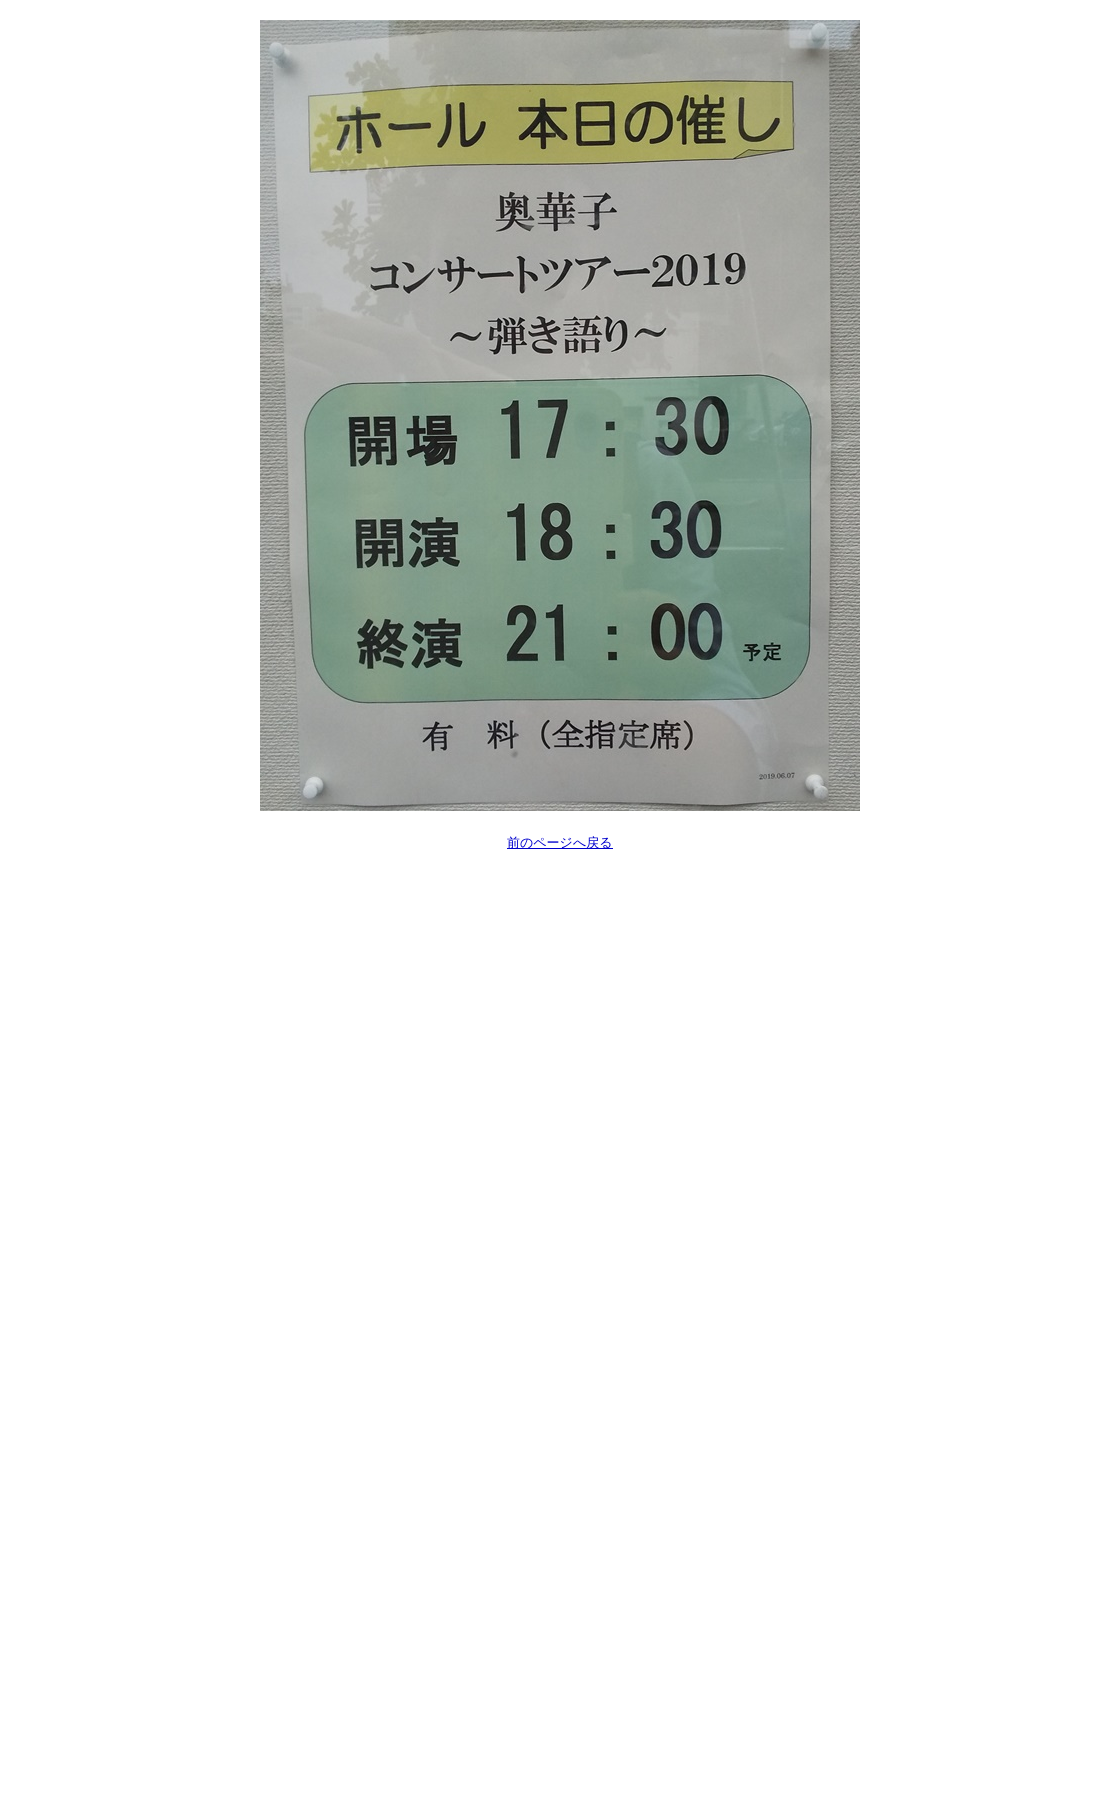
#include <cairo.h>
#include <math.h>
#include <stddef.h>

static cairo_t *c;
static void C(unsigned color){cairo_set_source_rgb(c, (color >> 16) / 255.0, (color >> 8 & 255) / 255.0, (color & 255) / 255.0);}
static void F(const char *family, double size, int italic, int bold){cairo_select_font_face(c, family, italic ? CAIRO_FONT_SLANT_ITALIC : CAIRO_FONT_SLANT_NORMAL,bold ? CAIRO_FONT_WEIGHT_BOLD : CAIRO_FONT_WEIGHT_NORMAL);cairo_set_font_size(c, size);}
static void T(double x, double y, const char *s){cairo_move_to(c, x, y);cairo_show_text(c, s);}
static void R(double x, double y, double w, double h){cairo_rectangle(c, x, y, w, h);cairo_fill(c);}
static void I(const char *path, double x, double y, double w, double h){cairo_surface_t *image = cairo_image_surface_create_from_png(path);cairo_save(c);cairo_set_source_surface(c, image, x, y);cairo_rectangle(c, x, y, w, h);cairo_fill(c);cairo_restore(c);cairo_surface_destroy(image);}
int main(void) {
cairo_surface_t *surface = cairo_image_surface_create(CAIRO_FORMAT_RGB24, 1120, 1796);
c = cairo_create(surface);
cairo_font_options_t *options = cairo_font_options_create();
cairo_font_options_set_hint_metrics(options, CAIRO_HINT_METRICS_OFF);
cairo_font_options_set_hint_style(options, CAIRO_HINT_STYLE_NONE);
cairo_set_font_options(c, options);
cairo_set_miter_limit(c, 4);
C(0xffffff);
cairo_paint(c);
I("1.png",260,20,600,791);
C(0x0000cc);
R(507,848,106,1);
F("WenQuanYi Zen Hei Medium",13,0,0);
T(507,847,"前のページへ戻る");
cairo_surface_write_to_png(surface, "o.png");
cairo_font_options_destroy(options);
cairo_destroy(c);
cairo_surface_destroy(surface);
return 0;
}
